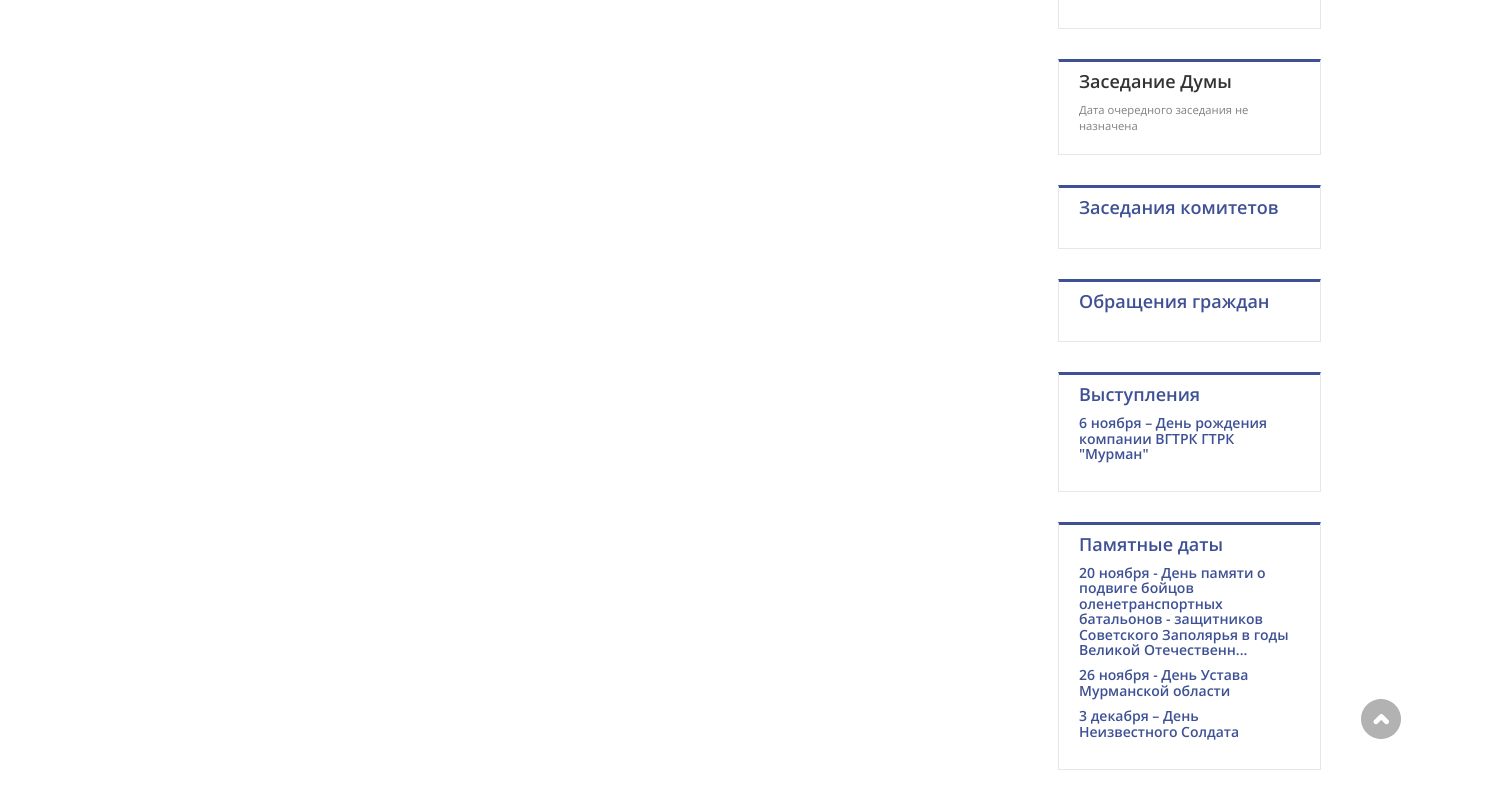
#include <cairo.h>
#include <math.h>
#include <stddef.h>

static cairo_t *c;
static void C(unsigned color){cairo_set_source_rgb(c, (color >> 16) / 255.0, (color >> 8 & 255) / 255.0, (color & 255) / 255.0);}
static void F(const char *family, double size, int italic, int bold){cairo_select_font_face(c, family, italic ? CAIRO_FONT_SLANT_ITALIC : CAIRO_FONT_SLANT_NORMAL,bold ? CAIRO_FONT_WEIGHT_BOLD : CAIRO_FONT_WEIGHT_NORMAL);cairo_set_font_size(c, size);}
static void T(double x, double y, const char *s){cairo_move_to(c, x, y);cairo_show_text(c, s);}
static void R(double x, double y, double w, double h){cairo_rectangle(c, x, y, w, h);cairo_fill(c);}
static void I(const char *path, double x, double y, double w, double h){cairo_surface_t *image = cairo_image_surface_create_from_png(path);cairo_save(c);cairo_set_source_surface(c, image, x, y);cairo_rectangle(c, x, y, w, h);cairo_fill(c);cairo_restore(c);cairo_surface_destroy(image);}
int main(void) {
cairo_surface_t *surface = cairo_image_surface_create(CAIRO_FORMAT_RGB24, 1501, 789);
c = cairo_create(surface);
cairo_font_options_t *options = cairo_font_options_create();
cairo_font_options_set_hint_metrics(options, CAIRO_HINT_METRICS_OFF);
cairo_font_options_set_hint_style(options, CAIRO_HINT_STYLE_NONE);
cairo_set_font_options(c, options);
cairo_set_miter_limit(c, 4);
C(0xffffff);
cairo_paint(c);
cairo_rectangle(c,1058.5,-.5,262,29);
C(0xe7e7e7);
cairo_set_line_width(c,1);
cairo_stroke(c);
C(0x3e5195);
cairo_new_path(c);
cairo_move_to(c,1058,59);
cairo_line_to(c,1321,59);
cairo_line_to(c,1320,62);
cairo_line_to(c,1059,62);
cairo_close_path(c);
cairo_fill(c);
C(0xe7e7e7);
cairo_new_path(c);
cairo_move_to(c,1321,59);
cairo_line_to(c,1321,155);
cairo_line_to(c,1320,154);
cairo_line_to(c,1320,62);
cairo_close_path(c);
cairo_fill(c);
R(1058,154,263,1);
cairo_new_path(c);
cairo_move_to(c,1058,155);
cairo_line_to(c,1058,59);
cairo_line_to(c,1059,62);
cairo_line_to(c,1059,154);
cairo_close_path(c);
cairo_fill(c);
F("Open Sans SemiBold",18,0,0);
C(0x333333);
T(1079,88,"Заседание Думы");
F("Open Sans",11.25,0,0);
C(0x808080);
T(1079,114,"Дата очередного заседания не");
T(1079,130,"назначена");
C(0x3e5195);
cairo_new_path(c);
cairo_move_to(c,1058,185);
cairo_line_to(c,1321,185);
cairo_line_to(c,1320,188);
cairo_line_to(c,1059,188);
cairo_close_path(c);
cairo_fill(c);
C(0xe7e7e7);
cairo_new_path(c);
cairo_move_to(c,1321,185);
cairo_line_to(c,1321,249);
cairo_line_to(c,1320,248);
cairo_line_to(c,1320,188);
cairo_close_path(c);
cairo_fill(c);
R(1058,248,263,1);
cairo_new_path(c);
cairo_move_to(c,1058,249);
cairo_line_to(c,1058,185);
cairo_line_to(c,1059,188);
cairo_line_to(c,1059,248);
cairo_close_path(c);
cairo_fill(c);
F("Open Sans SemiBold",18,0,0);
C(0x3e5194);
T(1079,214,"Заседания комитетов");
C(0x3e5195);
cairo_new_path(c);
cairo_move_to(c,1058,279);
cairo_line_to(c,1321,279);
cairo_line_to(c,1320,282);
cairo_line_to(c,1059,282);
cairo_close_path(c);
cairo_fill(c);
C(0xe7e7e7);
cairo_new_path(c);
cairo_move_to(c,1321,279);
cairo_line_to(c,1321,342);
cairo_line_to(c,1320,341);
cairo_line_to(c,1320,282);
cairo_close_path(c);
cairo_fill(c);
R(1058,341,263,1);
cairo_new_path(c);
cairo_move_to(c,1058,342);
cairo_line_to(c,1058,279);
cairo_line_to(c,1059,282);
cairo_line_to(c,1059,341);
cairo_close_path(c);
cairo_fill(c);
C(0x3e5194);
T(1079,308,"Обращения граждан");
C(0x3e5195);
cairo_new_path(c);
cairo_move_to(c,1058,372);
cairo_line_to(c,1321,372);
cairo_line_to(c,1320,375);
cairo_line_to(c,1059,375);
cairo_close_path(c);
cairo_fill(c);
C(0xe7e7e7);
cairo_new_path(c);
cairo_move_to(c,1321,372);
cairo_line_to(c,1321,492);
cairo_line_to(c,1320,491);
cairo_line_to(c,1320,375);
cairo_close_path(c);
cairo_fill(c);
R(1058,491,263,1);
cairo_new_path(c);
cairo_move_to(c,1058,492);
cairo_line_to(c,1058,372);
cairo_line_to(c,1059,375);
cairo_line_to(c,1059,491);
cairo_close_path(c);
cairo_fill(c);
C(0x3e5194);
T(1079,401,"Выступления");
F("Open Sans SemiBold",14,0,0);
T(1079,428,"6 ноября – День рождения");
T(1079,444,"компании ВГТРК ГТРК");
T(1079,459,"\"Мурман\"");
C(0x3e5195);
cairo_new_path(c);
cairo_move_to(c,1058,522);
cairo_line_to(c,1321,522);
cairo_line_to(c,1320,525);
cairo_line_to(c,1059,525);
cairo_close_path(c);
cairo_fill(c);
C(0xe7e7e7);
cairo_new_path(c);
cairo_move_to(c,1321,522);
cairo_line_to(c,1321,770);
cairo_line_to(c,1320,769);
cairo_line_to(c,1320,525);
cairo_close_path(c);
cairo_fill(c);
R(1058,769,263,1);
cairo_new_path(c);
cairo_move_to(c,1058,770);
cairo_line_to(c,1058,522);
cairo_line_to(c,1059,525);
cairo_line_to(c,1059,769);
cairo_close_path(c);
cairo_fill(c);
F("Open Sans SemiBold",18,0,0);
C(0x3e5194);
T(1079,551,"Памятные даты");
F("Open Sans SemiBold",14,0,0);
T(1079,578,"20 ноября - День памяти о");
T(1079,593,"подвиге бойцов");
T(1079,609,"оленетранспортных");
T(1079,624,"батальонов - защитников");
T(1079,640,"Советского Заполярья в годы");
T(1079,655,"Великой Отечественн...");
T(1079,680,"26 ноября - День Устава");
T(1079,696,"Мурманской области");
T(1079,721,"3 декабря – День");
T(1079,737,"Неизвестного Солдата");
I("1.png",1361,699,40,40);
cairo_surface_write_to_png(surface, "o.png");
cairo_font_options_destroy(options);
cairo_destroy(c);
cairo_surface_destroy(surface);
return 0;
}
